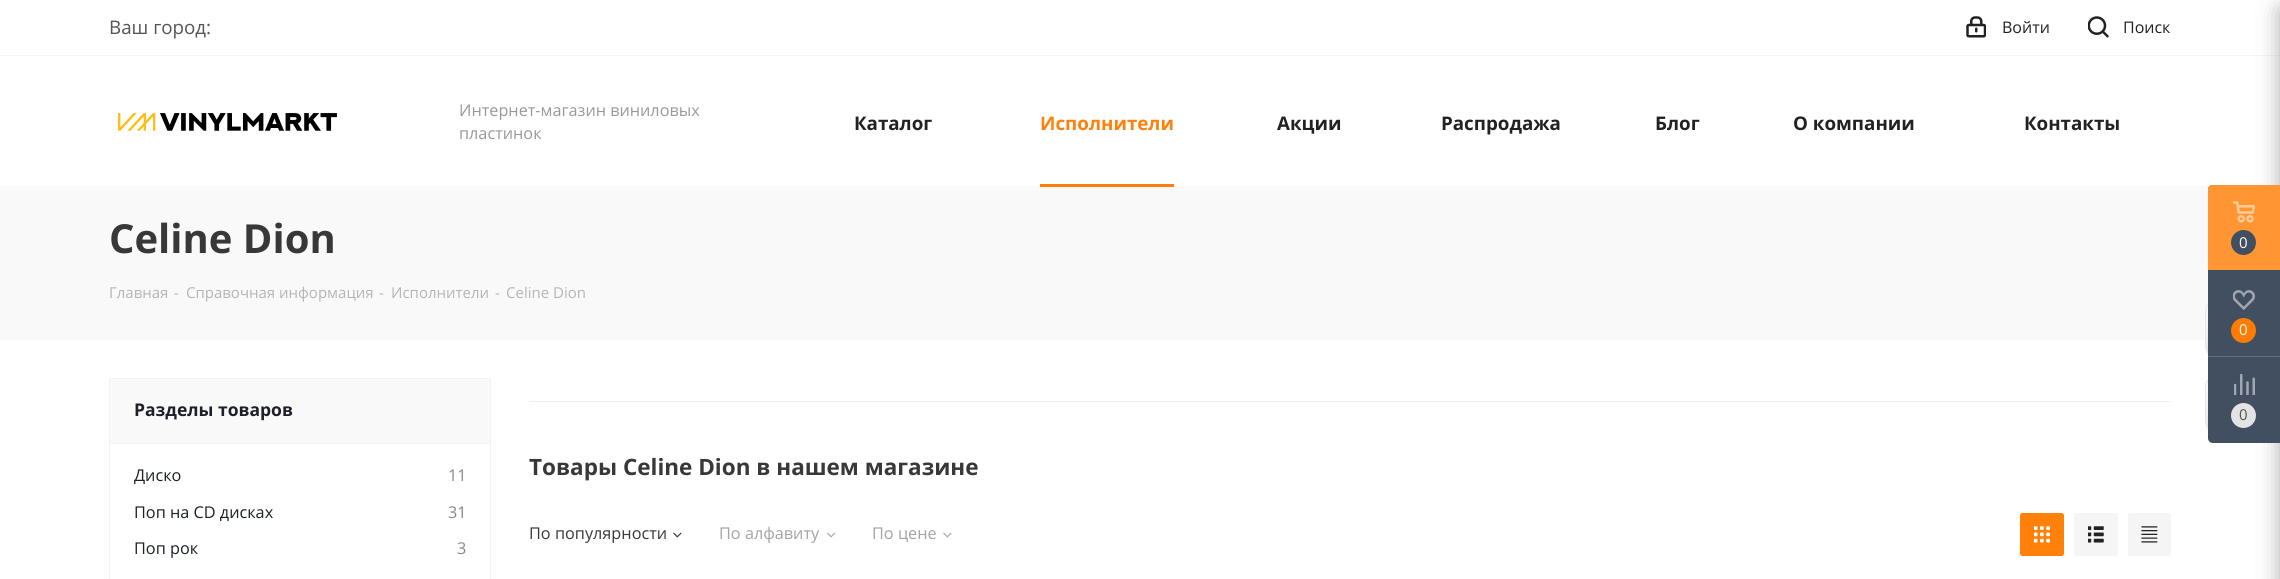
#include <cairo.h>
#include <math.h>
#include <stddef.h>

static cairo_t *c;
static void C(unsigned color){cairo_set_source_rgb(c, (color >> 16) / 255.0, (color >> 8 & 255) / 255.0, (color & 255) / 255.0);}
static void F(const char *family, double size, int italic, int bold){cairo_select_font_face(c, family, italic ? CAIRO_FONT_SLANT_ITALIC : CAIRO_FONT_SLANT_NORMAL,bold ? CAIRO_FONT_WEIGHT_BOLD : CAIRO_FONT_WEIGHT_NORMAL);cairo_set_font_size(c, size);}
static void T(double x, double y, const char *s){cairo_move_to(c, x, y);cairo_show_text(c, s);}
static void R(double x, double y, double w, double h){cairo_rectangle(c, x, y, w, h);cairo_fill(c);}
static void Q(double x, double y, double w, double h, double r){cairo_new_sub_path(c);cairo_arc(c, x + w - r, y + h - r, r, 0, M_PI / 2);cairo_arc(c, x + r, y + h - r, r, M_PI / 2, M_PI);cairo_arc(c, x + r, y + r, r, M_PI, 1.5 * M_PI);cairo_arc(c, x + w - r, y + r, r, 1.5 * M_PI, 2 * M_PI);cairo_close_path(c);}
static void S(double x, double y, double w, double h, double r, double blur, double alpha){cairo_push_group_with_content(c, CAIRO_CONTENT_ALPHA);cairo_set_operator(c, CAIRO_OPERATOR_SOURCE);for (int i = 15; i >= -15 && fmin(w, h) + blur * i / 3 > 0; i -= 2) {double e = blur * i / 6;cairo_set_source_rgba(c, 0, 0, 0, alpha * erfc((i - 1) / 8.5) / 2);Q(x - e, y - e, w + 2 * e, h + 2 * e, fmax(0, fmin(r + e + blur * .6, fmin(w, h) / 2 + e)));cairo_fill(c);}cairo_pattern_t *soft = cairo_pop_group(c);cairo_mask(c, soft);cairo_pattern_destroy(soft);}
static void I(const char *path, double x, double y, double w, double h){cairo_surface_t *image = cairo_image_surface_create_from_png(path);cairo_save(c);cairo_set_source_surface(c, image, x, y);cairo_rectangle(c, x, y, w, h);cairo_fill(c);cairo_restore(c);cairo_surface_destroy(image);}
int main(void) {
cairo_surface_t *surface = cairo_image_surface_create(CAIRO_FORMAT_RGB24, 2280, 579);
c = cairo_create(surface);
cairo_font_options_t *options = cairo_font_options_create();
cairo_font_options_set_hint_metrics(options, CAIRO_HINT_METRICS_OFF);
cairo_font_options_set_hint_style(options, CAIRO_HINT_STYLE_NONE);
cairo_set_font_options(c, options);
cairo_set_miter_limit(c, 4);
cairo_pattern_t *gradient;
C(0xffffff);
cairo_paint(c);
C(0xf6f6f6);
R(0,55,2280,1);
F("Open Sans",18.75,0,0);
C(0x555555);
T(109,34,"Ваш город:");
I("1.png",1966,16,20,22);
F("Open Sans",16,0,0);
C(0x222222);
T(2002,33,"Войти");
I("2.png",2088,16,21,22);
T(2123,33,"Поиск");
I("3.png",118,113,219,18);
F("Open Sans",16.25,0,0);
C(0x999999);
T(459,116,"Интернет-магазин виниловых");
T(459,139,"пластинок");
F("Open Sans",18.75,0,1);
C(0x222222);
T(854,130,"Каталог");
C(0xff810a);
T(1040,130,"Исполнители");
C(0xf9f9f9);
R(0,186,2210,154);
C(0xff810a);
R(1040,184,134,3);
C(0x222222);
T(1277,130,"Акции");
T(1441,130,"Распродажа");
T(1655,130,"Блог");
T(1793,130,"О компании");
T(2024,130,"Контакты");
F("Open Sans",40,0,1);
C(0x383838);
T(109,253,"Celine Dion");
F("Open Sans",15,0,0);
C(0xb6b5b5);
T(109,298,"Главная");
T(174,298,"-");
T(186,298,"Справочная информация");
T(379,298,"-");
T(391,298,"Исполнители");
T(495,298,"-");
T(506,298,"Celine Dion");
C(0xf9f9f9);
Q(109.5,378.5,381,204,2);
cairo_fill_preserve(c);
C(0xf2f2f2);
cairo_set_line_width(c,1);
cairo_stroke(c);
R(110,443,380,1);
F("Open Sans",17.5,0,1);
C(0x1d2029);
T(134,416,"Разделы товаров");
C(0xffffff);
R(110,444,380,135);
F("Open Sans",16.25,0,0);
C(0x1d2029);
T(134,481,"Диско");
C(0x888888);
T(448,481,"11");
C(0x1d2029);
T(134,518,"Поп на CD дисках");
C(0x888888);
T(448,518,"31");
C(0x1d2029);
T(134,554,"Поп рок");
C(0x888888);
T(457,554,"3");
C(0xf0f0f0);
R(529,401,1642,1);
F("Open Sans",22.5,0,1);
C(0x383838);
T(529,475,"Товары Celine Dion в нашем магазине");
F("Open Sans",16.25,0,0);
T(529,539,"По популярности");
I("4.png",673,532,9,6);
C(0xa5a3a3);
T(719,539,"По алфавиту");
I("5.png",827,532,9,6);
T(872,539,"По цене");
I("6.png",943,532,9,6);
C(0xff810a);
Q(2020,513,44,43,2.5);
cairo_fill(c);
I("7.png",2034,526,16,17);
C(0xf5f5f5);
Q(2074,513,44,43,2.5);
cairo_fill(c);
I("8.png",2088,526,16,17);
Q(2128,513,43,43,2.5);
cairo_fill(c);
I("9.png",2141,526,17,17);
cairo_save(c);
Q(2205,298,63,62,15);
cairo_clip(c);
gradient = cairo_pattern_create_linear(2236,359,2236,299);
cairo_pattern_add_color_stop_rgba(gradient,0,0.902,0.902,0.902,1);
cairo_pattern_add_color_stop_rgba(gradient,1,1,1,1,1);
cairo_set_source(c,gradient);
cairo_pattern_destroy(gradient);
R(2205,304,3,50);
cairo_restore(c);
Q(2205.5,298.5,62,61,14.5);
C(0xe6e6e6);
cairo_stroke(c);
cairo_save(c);
Q(2205,373,63,62,15);
cairo_clip(c);
gradient = cairo_pattern_create_linear(2236,434,2236,374);
cairo_pattern_add_color_stop_rgba(gradient,0,0.902,0.902,0.902,1);
cairo_pattern_add_color_stop_rgba(gradient,1,1,1,1,1);
cairo_set_source(c,gradient);
cairo_pattern_destroy(gradient);
R(2205,379,3,50);
cairo_restore(c);
Q(2205.5,373.5,62,61,14.5);
cairo_stroke(c);
C(0x2c2c2c);
S(2280,8,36,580,2.5,11,.4);
C(0x424f60);
cairo_new_path(c);
cairo_move_to(c,2213,185);
cairo_line_to(c,2280,185);
cairo_line_to(c,2280,443);
cairo_line_to(c,2213,443);
cairo_curve_to(c,2210,443,2208,441,2208,438);
cairo_line_to(c,2208,190);
cairo_curve_to(c,2208,187,2210,185,2213,185);
cairo_close_path(c);
cairo_fill(c);
C(0xff9633);
cairo_new_path(c);
cairo_move_to(c,2213,185);
cairo_line_to(c,2280,185);
cairo_line_to(c,2280,270);
cairo_line_to(c,2208,270);
cairo_line_to(c,2208,190);
cairo_curve_to(c,2208,187,2210,185,2213,185);
cairo_close_path(c);
cairo_fill(c);
I("10.png",2233,201,22,22);
C(0x424f60);
cairo_arc(c,2243.5,242.5,12.5,0,2 * M_PI);
cairo_fill(c);
F("Open Sans",15,0,0);
C(0xffffff);
T(2239,248,"0");
I("11.png",2233,290,22,20);
C(0xff7c00);
cairo_arc(c,2243.5,330.5,12.5,0,2 * M_PI);
cairo_fill(c);
C(0xffffff);
T(2239,335,"0");
C(0x636f7d);
R(2208,356,72,1);
I("12.png",2234,374,21,21);
C(0xe3e3e3);
cairo_arc(c,2243.5,415.5,12.5,0,2 * M_PI);
cairo_fill(c);
C(0x555555);
T(2239,420,"0");
cairo_surface_write_to_png(surface, "o.png");
cairo_font_options_destroy(options);
cairo_destroy(c);
cairo_surface_destroy(surface);
return 0;
}
